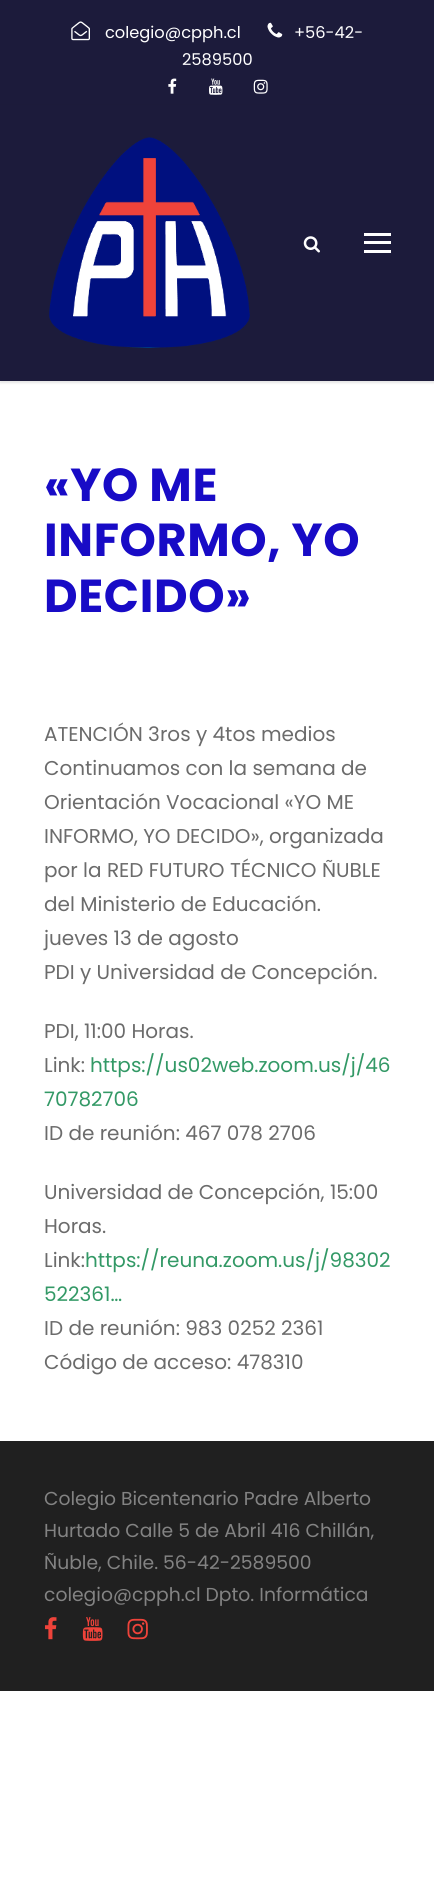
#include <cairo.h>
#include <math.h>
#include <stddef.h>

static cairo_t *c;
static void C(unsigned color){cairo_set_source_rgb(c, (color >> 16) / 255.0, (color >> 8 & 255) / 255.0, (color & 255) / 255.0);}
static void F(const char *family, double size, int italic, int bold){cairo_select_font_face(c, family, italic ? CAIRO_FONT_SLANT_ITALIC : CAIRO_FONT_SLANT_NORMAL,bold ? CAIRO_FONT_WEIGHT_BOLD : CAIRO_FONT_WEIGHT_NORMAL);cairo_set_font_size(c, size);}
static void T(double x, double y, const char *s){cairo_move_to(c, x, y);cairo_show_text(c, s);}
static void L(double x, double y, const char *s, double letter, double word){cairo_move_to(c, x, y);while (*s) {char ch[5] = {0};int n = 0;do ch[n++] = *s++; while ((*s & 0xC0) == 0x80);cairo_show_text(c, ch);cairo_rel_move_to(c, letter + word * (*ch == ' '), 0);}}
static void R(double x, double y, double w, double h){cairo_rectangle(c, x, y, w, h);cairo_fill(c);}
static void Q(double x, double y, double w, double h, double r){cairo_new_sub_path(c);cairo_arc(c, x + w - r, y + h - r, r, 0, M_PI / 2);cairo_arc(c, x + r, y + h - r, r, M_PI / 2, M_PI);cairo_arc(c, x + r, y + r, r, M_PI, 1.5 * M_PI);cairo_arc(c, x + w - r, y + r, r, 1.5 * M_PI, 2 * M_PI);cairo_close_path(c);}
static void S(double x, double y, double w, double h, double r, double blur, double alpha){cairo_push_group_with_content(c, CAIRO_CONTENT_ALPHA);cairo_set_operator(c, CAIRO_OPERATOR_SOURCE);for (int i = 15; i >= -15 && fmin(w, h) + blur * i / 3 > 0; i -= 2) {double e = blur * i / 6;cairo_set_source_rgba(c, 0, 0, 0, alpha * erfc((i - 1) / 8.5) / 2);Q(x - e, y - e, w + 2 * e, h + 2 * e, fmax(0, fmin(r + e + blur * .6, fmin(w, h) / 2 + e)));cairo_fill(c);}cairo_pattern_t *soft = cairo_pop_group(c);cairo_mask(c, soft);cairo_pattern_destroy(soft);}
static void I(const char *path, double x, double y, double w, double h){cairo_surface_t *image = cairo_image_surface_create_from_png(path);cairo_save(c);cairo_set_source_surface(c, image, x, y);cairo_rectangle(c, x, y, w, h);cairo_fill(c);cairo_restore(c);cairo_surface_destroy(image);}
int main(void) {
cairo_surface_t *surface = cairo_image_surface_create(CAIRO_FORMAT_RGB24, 434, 1888);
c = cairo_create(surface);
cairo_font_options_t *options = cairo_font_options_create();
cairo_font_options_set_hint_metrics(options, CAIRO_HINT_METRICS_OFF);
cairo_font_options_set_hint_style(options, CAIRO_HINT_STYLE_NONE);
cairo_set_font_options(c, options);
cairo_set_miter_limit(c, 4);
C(0xffffff);
cairo_paint(c);
C(0x1c1b3b);
R(0,0,434,105);
I("1.png",71,21,19,20);
F("Poppins",16.25,0,0);
C(0xffffff);
T(105,38,"colegio@cpph.cl");
I("2.png",267,22,16,16);
T(294,38,"+56-42-");
T(182,65,"2589500");
I("3.png",168,78,9,16);
I("4.png",209,78,14,17);
I("5.png",253,79,15,15);
C(0x000000);
S(0,106,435,277,0,1,.1);
C(0x1c1b3b);
R(0,105,434,276);
I("6.png",49,137,201,211);
I("7.png",303,236,17,17);
C(0xffffff);
R(364,233,27,3);
R(364,241,27,3);
R(364,250,27,3);
F("Poppins",46.25,0,1);
C(0x180bc6);
L(44,501,"«YO ME",.6,0);
L(44,556,"INFORMO, YO",.6,0);
L(44,612,"DECIDO»",.6,0);
F("Poppins",20,0,0);
C(0x6b6b6b);
T(44,741,"ATENCIÓN 3ros y 4tos medios");
T(44,775,"Continuamos con la semana de");
T(44,809,"Orientación Vocacional «YO ME");
T(44,843,"INFORMO, YO DECIDO», organizada");
T(44,877,"por la RED FUTURO TÉCNICO ÑUBLE");
T(44,911,"del Ministerio de Educación.");
T(44,945,"jueves 13 de agosto");
T(44,979,"PDI y Universidad de Concepción.");
T(44,1038,"PDI, 11:00 Horas.");
T(44,1072,"Link:");
C(0x339966);
T(90,1072,"https://us02web.zoom.us/j/46");
T(44,1106,"70782706");
C(0x6b6b6b);
T(44,1140,"ID de reunión: 467 078 2706");
T(44,1199,"Universidad de Concepción, 15:00");
T(44,1233,"Horas.");
T(44,1267,"Link:");
C(0x339966);
T(85,1267,"https://reuna.zoom.us/j/98302");
T(44,1301,"522361…");
C(0x6b6b6b);
T(44,1335,"ID de reunión: 983 0252 2361");
T(44,1369,"Código de acceso: 478310");
C(0x202020);
R(0,1441,434,250);
F("Poppins",18.75,0,0);
C(0x838383);
T(44,1505,"Colegio Bicentenario Padre Alberto");
T(44,1537,"Hurtado Calle 5 de Abril 416 Chillán,");
T(44,1569,"Ñuble, Chile. 56-42-2589500");
T(44,1601,"colegio@cpph.cl Dpto. Informática");
I("8.png",45,1617,12,23);
I("9.png",82,1617,21,24);
I("10.png",127,1618,21,22);
cairo_surface_write_to_png(surface, "o.png");
cairo_font_options_destroy(options);
cairo_destroy(c);
cairo_surface_destroy(surface);
return 0;
}
